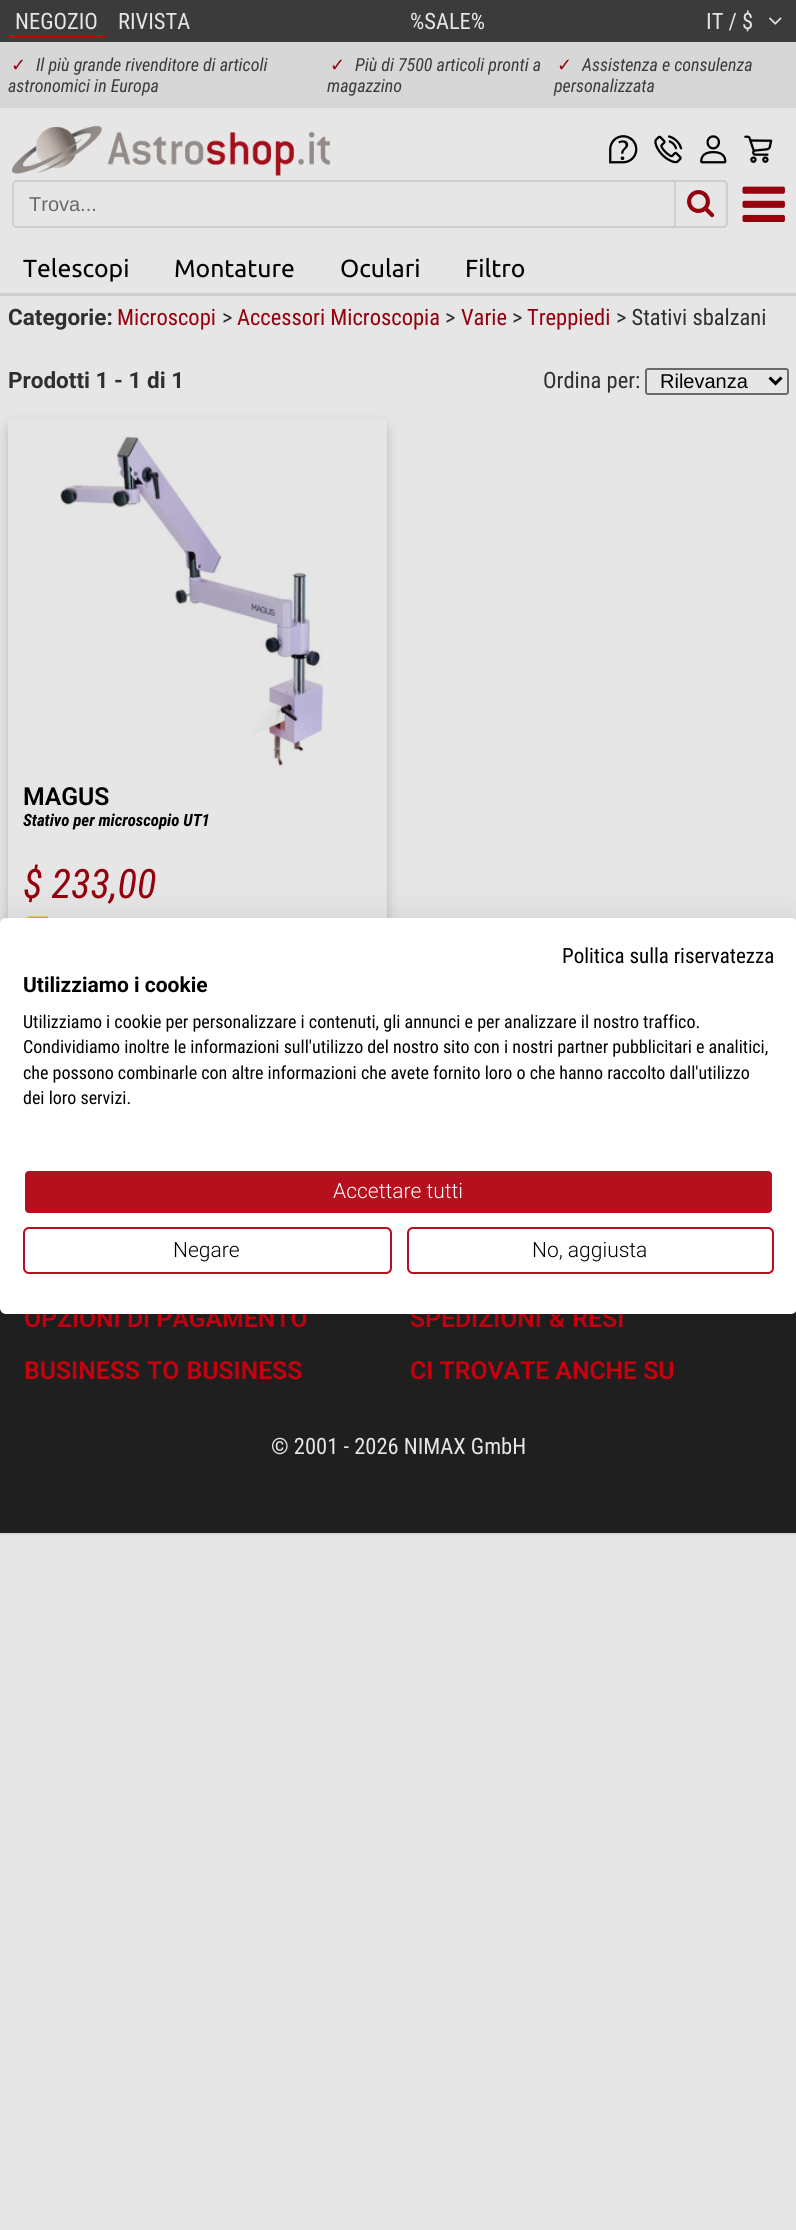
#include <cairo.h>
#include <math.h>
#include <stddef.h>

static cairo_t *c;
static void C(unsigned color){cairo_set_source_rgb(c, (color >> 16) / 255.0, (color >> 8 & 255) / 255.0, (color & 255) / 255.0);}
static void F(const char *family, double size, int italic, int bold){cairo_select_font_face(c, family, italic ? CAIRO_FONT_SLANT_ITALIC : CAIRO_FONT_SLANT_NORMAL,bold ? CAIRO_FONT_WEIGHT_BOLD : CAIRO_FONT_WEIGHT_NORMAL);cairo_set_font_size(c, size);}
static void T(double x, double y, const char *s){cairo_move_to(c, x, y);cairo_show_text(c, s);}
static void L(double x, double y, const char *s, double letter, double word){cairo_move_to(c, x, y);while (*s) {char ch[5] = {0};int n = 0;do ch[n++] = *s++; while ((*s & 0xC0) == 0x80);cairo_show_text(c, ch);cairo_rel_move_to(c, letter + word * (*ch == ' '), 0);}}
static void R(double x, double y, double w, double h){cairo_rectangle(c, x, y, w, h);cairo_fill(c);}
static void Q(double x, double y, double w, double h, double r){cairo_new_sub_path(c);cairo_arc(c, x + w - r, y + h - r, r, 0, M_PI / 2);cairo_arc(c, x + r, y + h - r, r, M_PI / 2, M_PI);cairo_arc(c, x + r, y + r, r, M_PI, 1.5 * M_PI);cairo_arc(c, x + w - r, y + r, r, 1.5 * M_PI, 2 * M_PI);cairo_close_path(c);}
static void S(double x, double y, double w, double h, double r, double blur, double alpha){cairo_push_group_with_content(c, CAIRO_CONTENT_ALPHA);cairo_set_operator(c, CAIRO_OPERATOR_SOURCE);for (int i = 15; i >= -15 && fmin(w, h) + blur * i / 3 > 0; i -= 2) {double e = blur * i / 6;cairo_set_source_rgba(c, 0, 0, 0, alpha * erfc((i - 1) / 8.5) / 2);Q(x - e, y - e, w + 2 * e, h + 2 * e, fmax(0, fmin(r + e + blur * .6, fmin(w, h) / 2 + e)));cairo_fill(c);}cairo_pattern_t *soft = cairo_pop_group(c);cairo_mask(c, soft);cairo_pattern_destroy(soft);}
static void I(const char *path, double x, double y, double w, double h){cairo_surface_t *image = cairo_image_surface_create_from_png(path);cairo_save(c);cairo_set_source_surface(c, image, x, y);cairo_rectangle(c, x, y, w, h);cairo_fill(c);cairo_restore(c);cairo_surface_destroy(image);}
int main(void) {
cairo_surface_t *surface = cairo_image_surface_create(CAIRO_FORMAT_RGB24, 796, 2230);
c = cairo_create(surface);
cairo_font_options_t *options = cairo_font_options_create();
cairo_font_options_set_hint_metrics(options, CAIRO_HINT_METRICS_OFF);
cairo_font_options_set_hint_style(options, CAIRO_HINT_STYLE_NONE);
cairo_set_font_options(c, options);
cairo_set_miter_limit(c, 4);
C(0xe6e6e6);
cairo_paint(c);
C(0x3b3b3c);
R(0,0,796,42);
F("Roboto Condensed",22.5,0,0);
C(0xe6e6e6);
T(15,29,"NEGOZIO");
C(0xc7000f);
R(8,35,97,3);
C(0xe6e6e6);
T(118,29,"RIVISTA");
T(410,29,"%SALE%");
T(706,29,"IT / $");
I("1.png",769,17,13,8);
C(0xd7d7d7);
R(0,42,796,66);
F("DejaVu Sans",18,0,0);
C(0x95000c);
T(11,71,"✓");
F("Roboto Condensed",18,1,0);
C(0x3b3b3c);
T(36,71,"Il più grande rivenditore di articoli");
T(8,92,"astronomici in Europa");
F("DejaVu Sans",18,0,0);
C(0x95000c);
T(330,71,"✓");
F("Roboto Condensed",18,1,0);
C(0x3b3b3c);
T(355,71,"Più di 7500 articoli pronti a");
T(327,92,"magazzino");
F("DejaVu Sans",18,0,0);
C(0x95000c);
T(557,71,"✓");
F("Roboto Condensed",18,1,0);
C(0x3b3b3c);
T(582,71,"Assistenza e consulenza");
T(554,92,"personalizzata");
I("2.png",12,126,319,50);
I("3.png",609,135,29,29);
I("4.png",654,135,29,29);
I("5.png",700,135,27,29);
I("6.png",744,135,29,28);
Q(13,181,714,46,4);
C(0xcecece);
cairo_stroke(c);
F("Liberation Sans",20,0,0);
C(0x696969);
T(29,211,"Trova...");
C(0xe6e6e6);
cairo_new_path(c);
cairo_move_to(c,675,181);
cairo_line_to(c,723,181);
cairo_curve_to(c,725,181,727,183,727,185);
cairo_line_to(c,727,223);
cairo_curve_to(c,727,225,725,227,723,227);
cairo_line_to(c,675,227);
cairo_close_path(c);
cairo_fill_preserve(c);
C(0xcecece);
cairo_stroke(c);
I("7.png",687,190,28,28);
I("8.png",742,186,43,36);
F("Ubuntu",24.75,0,0);
C(0x000000);
T(23,277,"Telescopi");
T(174,277,"Montature");
T(340,277,"Oculari");
T(465,277,"Filtro");
C(0xcecece);
R(0,293,796,3);
F("Roboto",22.5,0,1);
C(0x2f2f2f);
T(8,325,"Categorie:");
F("Roboto Condensed",22.5,0,0);
C(0x95000c);
T(117,325,"Microscopi");
C(0x2f2f2f);
T(222,325,">");
C(0x95000c);
T(237,325,"Accessori Microscopia");
C(0x2f2f2f);
T(445,325,">");
C(0x95000c);
T(461,325,"Varie");
C(0x2f2f2f);
T(512,325,">");
C(0x95000c);
T(527,325,"Treppiedi");
C(0x2f2f2f);
T(616,325,"> Stativi sbalzani");
F("Roboto",22.5,0,1);
T(8,388,"Prodotti 1 - 1 di 1");
F("Roboto Condensed",22.5,0,0);
T(543,388,"Ordina per:");
Q(646,369,142,25,2);
C(0x6a6a6a);
cairo_stroke(c);
cairo_new_path(c);
cairo_move_to(c,769.5,377.5);
cairo_line_to(c,775.5,383.5);
cairo_line_to(c,781.5,377.5);
C(0x000000);
cairo_set_line_width(c,3);
cairo_stroke(c);
F("Liberation Sans",20,0,0);
T(660,388,"Rilevanza");
cairo_save(c);
cairo_set_fill_rule(c,CAIRO_FILL_RULE_EVEN_ODD);
cairo_new_path(c);
cairo_move_to(c,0,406);
cairo_line_to(c,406,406);
cairo_line_to(c,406,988);
cairo_line_to(c,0,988);
cairo_close_path(c);
cairo_move_to(c,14,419);
cairo_line_to(c,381,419);
cairo_curve_to(c,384.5,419,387,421.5,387,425);
cairo_line_to(c,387,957);
cairo_curve_to(c,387,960.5,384.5,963,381,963);
cairo_line_to(c,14,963);
cairo_curve_to(c,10.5,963,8,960.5,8,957);
cairo_line_to(c,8,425);
cairo_curve_to(c,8,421.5,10.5,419,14,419);
cairo_close_path(c);
cairo_clip(c);
C(0x000000);
S(8,425,379,544,6,6,.2);
cairo_restore(c);
I("9.png",60,435,264,335);
F("Roboto SemiBold",24.75,0,0);
T(23,805,"MAGUS");
F("Roboto Condensed",16.9,1,1);
T(23,826,"Stativo per microscopio UT1");
F("Roboto Condensed",40.5,1,0);
C(0x95000c);
T(23,898,"$ 233,00");
I("10.png",26,916,22,2);
C(0x1f1f1f);
R(0,1308,796,225);
C(0xd7d7d7);
R(0,1533,796,2);
F("Roboto SemiBold",24.75,0,0);
C(0xc7000f);
T(24,1327,"OPZIONI DI PAGAMENTO");
L(410,1327,"SPEDIZIONI & RESI",0,1);
L(24,1379,"BUSINESS TO BUSINESS",0,1);
T(410,1379,"CI TROVATE ANCHE SU");
F("Roboto Condensed",22.5,0,0);
C(0xe6e6e6);
T(271,1454,"© 2001 - 2026 NIMAX GmbH");
C(0x000000);
S(0,918,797,396,6,18,.1);
C(0xffffff);
Q(0,918,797,396,6);
cairo_fill(c);
F("Roboto Condensed",21,0,0);
C(0x000000);
T(562,963,"Politica sulla riservatezza");
F("Roboto",21,0,1);
T(23,992,"Utilizziamo i cookie");
F("Roboto Condensed",18,0,0);
T(23,1028,"Utilizziamo i cookie per personalizzare i contenuti, gli annunci e per analizzare il nostro traffico.");
T(23,1053,"Condividiamo inoltre le informazioni sull'utilizzo del nostro sito con i nostri partner pubblicitari e analitici,");
T(23,1079,"che possono combinarle con altre informazioni che avete fornito loro o che hanno raccolto dall'utilizzo");
T(23,1104,"dei loro servizi.");
C(0xb60f1d);
Q(24,1170,749,44,5);
cairo_fill_preserve(c);
C(0xffffff);
cairo_set_line_width(c,2);
cairo_stroke(c);
F("Roboto Light",21,0,0);
T(333,1198,"Accettare tutti");
Q(24,1228,367,45,5);
C(0xb60f1d);
cairo_stroke(c);
C(0x000000);
T(173,1257,"Negare");
Q(408,1228,365,45,5);
C(0xb60f1d);
cairo_stroke(c);
C(0x000000);
T(532,1257,"No, aggiusta");
cairo_surface_write_to_png(surface, "o.png");
cairo_font_options_destroy(options);
cairo_destroy(c);
cairo_surface_destroy(surface);
return 0;
}
